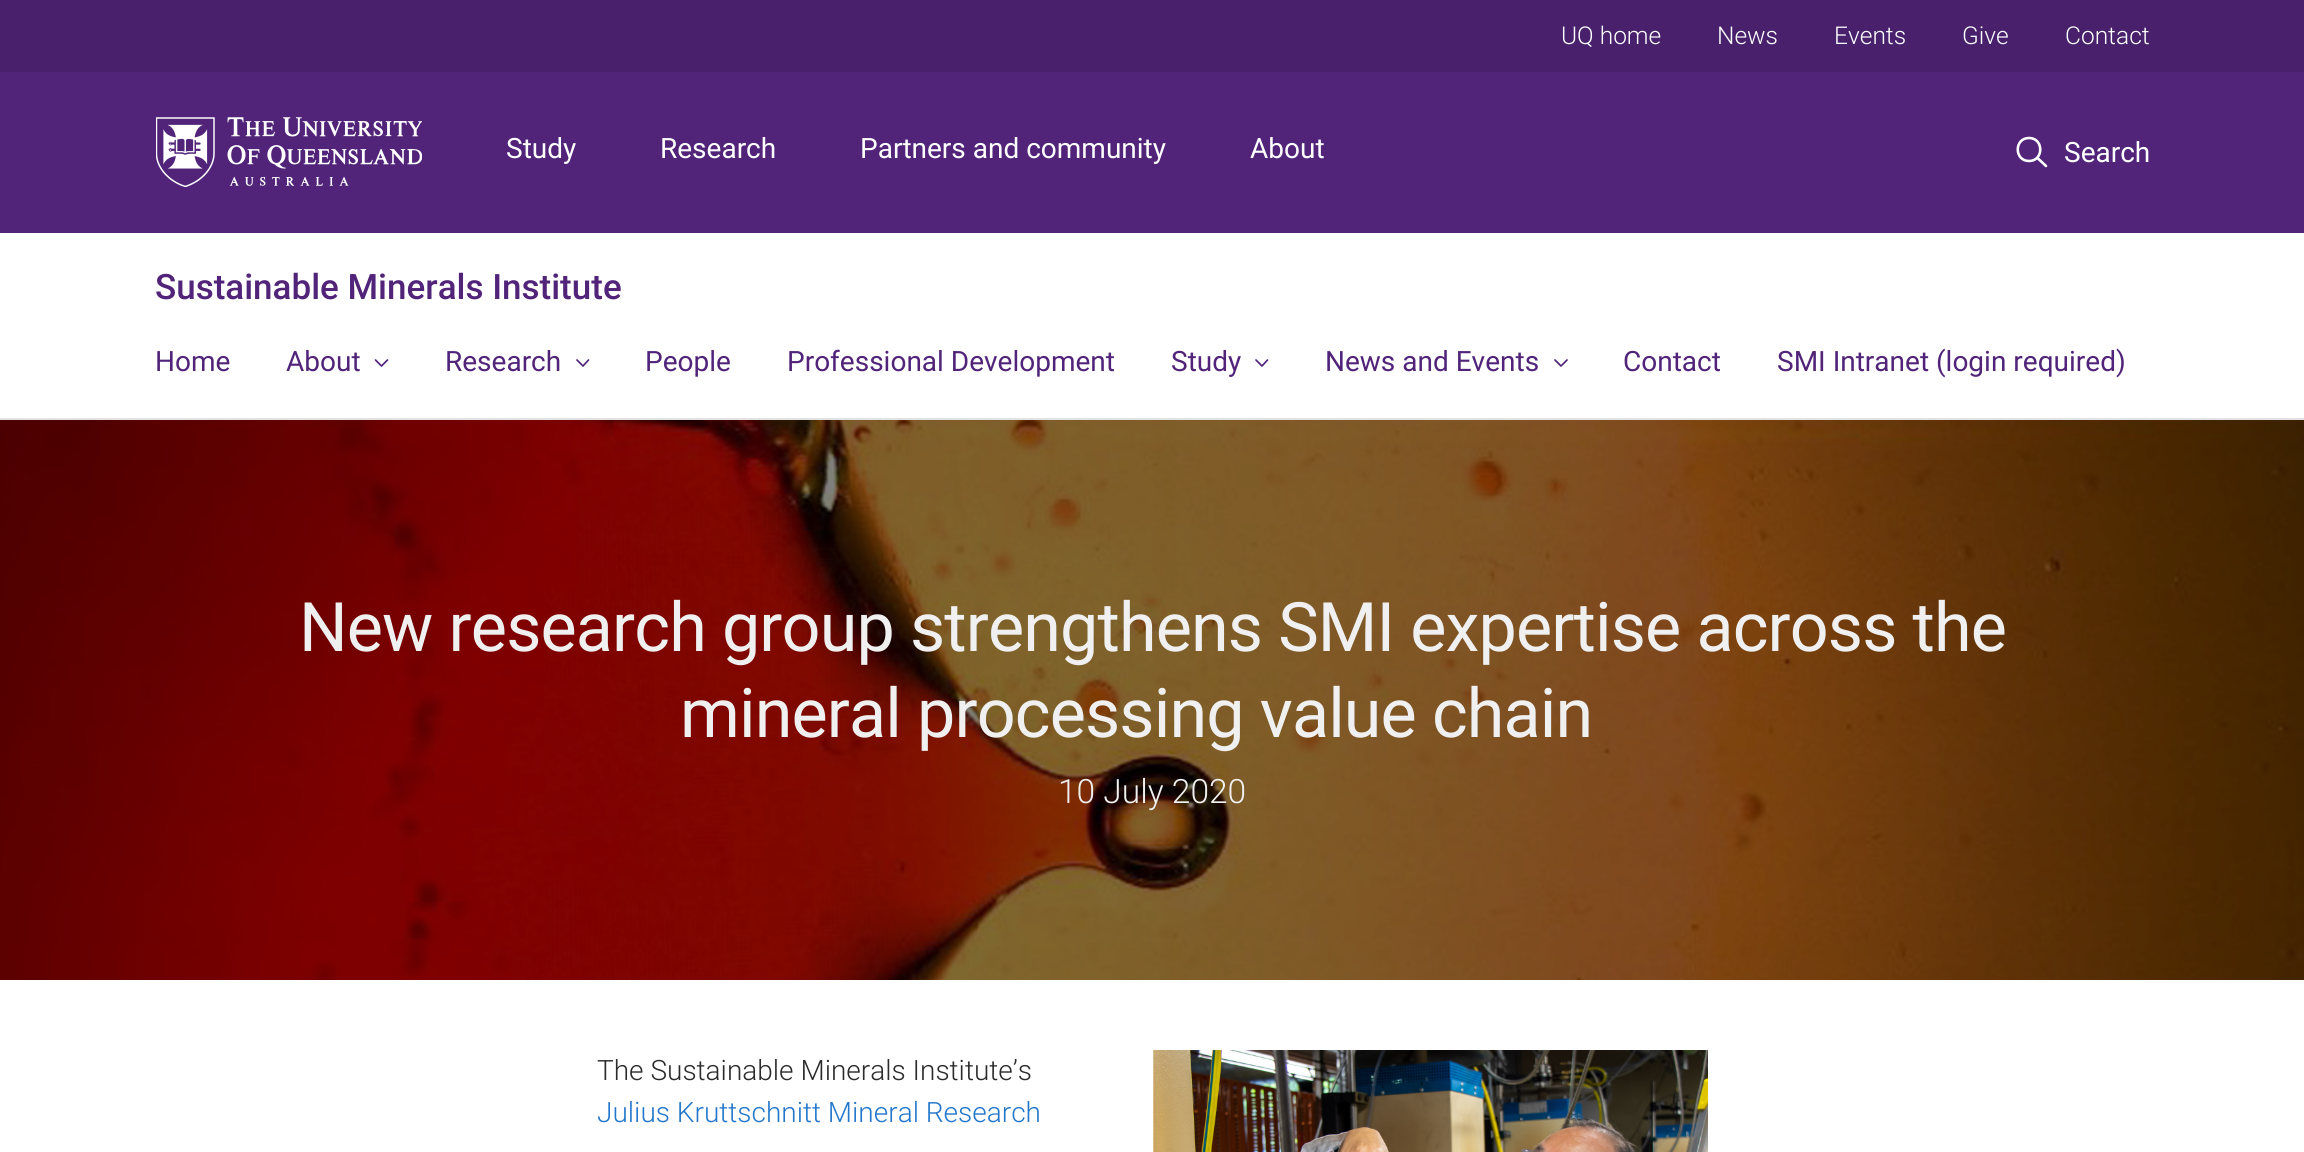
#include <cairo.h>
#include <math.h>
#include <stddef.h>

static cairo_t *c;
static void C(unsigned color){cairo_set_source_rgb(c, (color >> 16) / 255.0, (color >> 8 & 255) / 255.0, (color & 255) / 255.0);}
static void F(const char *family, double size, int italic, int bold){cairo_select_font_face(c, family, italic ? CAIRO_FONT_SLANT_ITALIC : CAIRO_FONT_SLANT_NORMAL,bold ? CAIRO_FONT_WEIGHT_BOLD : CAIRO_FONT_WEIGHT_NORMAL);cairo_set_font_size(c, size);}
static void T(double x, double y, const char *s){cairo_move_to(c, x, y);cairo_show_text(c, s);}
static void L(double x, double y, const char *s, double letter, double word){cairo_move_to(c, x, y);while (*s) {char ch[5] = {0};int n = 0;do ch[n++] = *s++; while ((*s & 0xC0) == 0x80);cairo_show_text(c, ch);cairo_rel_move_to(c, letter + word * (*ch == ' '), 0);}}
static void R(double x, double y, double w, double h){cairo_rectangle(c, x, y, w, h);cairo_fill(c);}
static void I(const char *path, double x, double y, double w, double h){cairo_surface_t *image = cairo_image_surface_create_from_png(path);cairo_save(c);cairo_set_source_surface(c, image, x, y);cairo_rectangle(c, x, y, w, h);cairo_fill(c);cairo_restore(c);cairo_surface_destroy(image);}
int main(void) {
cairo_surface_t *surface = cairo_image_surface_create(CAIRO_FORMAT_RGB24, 2304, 1152);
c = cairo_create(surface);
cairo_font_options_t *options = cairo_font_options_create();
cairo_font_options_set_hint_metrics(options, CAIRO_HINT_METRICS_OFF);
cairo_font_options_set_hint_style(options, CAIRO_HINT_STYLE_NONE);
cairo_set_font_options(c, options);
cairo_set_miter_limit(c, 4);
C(0xffffff);
cairo_paint(c);
C(0x51247a);
R(0,72,2304,161);
C(0x48206c);
R(0,0,2304,72);
F("Roboto Light",24.5,0,0);
C(0xffffff);
T(1561,44,"UQ home");
T(1717,44,"News");
T(1834,44,"Events");
T(1962,44,"Give");
T(2065,44,"Contact");
I("1.png",156,117,266,70);
F("Roboto",28,0,0);
T(506,158,"Study");
T(660,158,"Research");
T(860,158,"Partners and community");
T(1250,158,"About");
cairo_new_path(c);
cairo_move_to(c,2029,161);
cairo_curve_to(c,2044,161,2044,138,2029,138);
cairo_curve_to(c,2014,138,2014,161,2029,161);
cairo_close_path(c);
cairo_set_line_width(c,2.6);
cairo_stroke(c);
cairo_new_path(c);
cairo_move_to(c,2038,158.5);
cairo_line_to(c,2046,166);
cairo_set_line_cap(c,CAIRO_LINE_CAP_ROUND);
cairo_set_line_join(c,CAIRO_LINE_JOIN_ROUND);
cairo_stroke(c);
T(2064,162,"Search");
C(0xe2e2e2);
R(0,418,2304,2);
F("Roboto Medium",35,0,0);
C(0x51247a);
T(155,299,"Sustainable Minerals Institute");
F("Roboto",28,0,0);
T(155,371,"Home");
T(286,371,"About");
cairo_new_path(c);
cairo_move_to(c,375.5,360);
cairo_line_to(c,381.5,366);
cairo_line_to(c,387.5,360);
cairo_set_line_width(c,1.7);
cairo_stroke(c);
T(445,371,"Research");
cairo_new_path(c);
cairo_move_to(c,577,360);
cairo_line_to(c,583,366);
cairo_line_to(c,588.5,360);
cairo_stroke(c);
T(645,371,"People");
T(787,371,"Professional Development");
T(1171,371,"Study");
cairo_new_path(c);
cairo_move_to(c,1256,360);
cairo_line_to(c,1262,366);
cairo_line_to(c,1267.5,360);
cairo_stroke(c);
T(1325,371,"News and Events");
cairo_new_path(c);
cairo_move_to(c,1555,360);
cairo_line_to(c,1561,366);
cairo_line_to(c,1567,360);
cairo_stroke(c);
T(1623,371,"Contact");
T(1777,371,"SMI Intranet (login required)");
I("2.png",0,420,2304,560);
F("Roboto",68.25,0,0);
C(0xf0f0f0);
L(299,651,"New research group strengthens SMI expertise across the",-.88,0);
L(680,737,"mineral processing value chain",-.88,0);
F("Roboto Light",33.5,0,0);
T(1058,803,"10 July 2020");
F("Roboto Light",28,0,0);
C(0x2b2b2b);
T(597,1080,"The Sustainable Minerals Institute’s");
C(0x2377cb);
T(597,1122,"Julius Kruttschnitt Mineral Research");
I("3.png",1153,1050,555,102);
cairo_surface_write_to_png(surface, "o.png");
cairo_font_options_destroy(options);
cairo_destroy(c);
cairo_surface_destroy(surface);
return 0;
}
